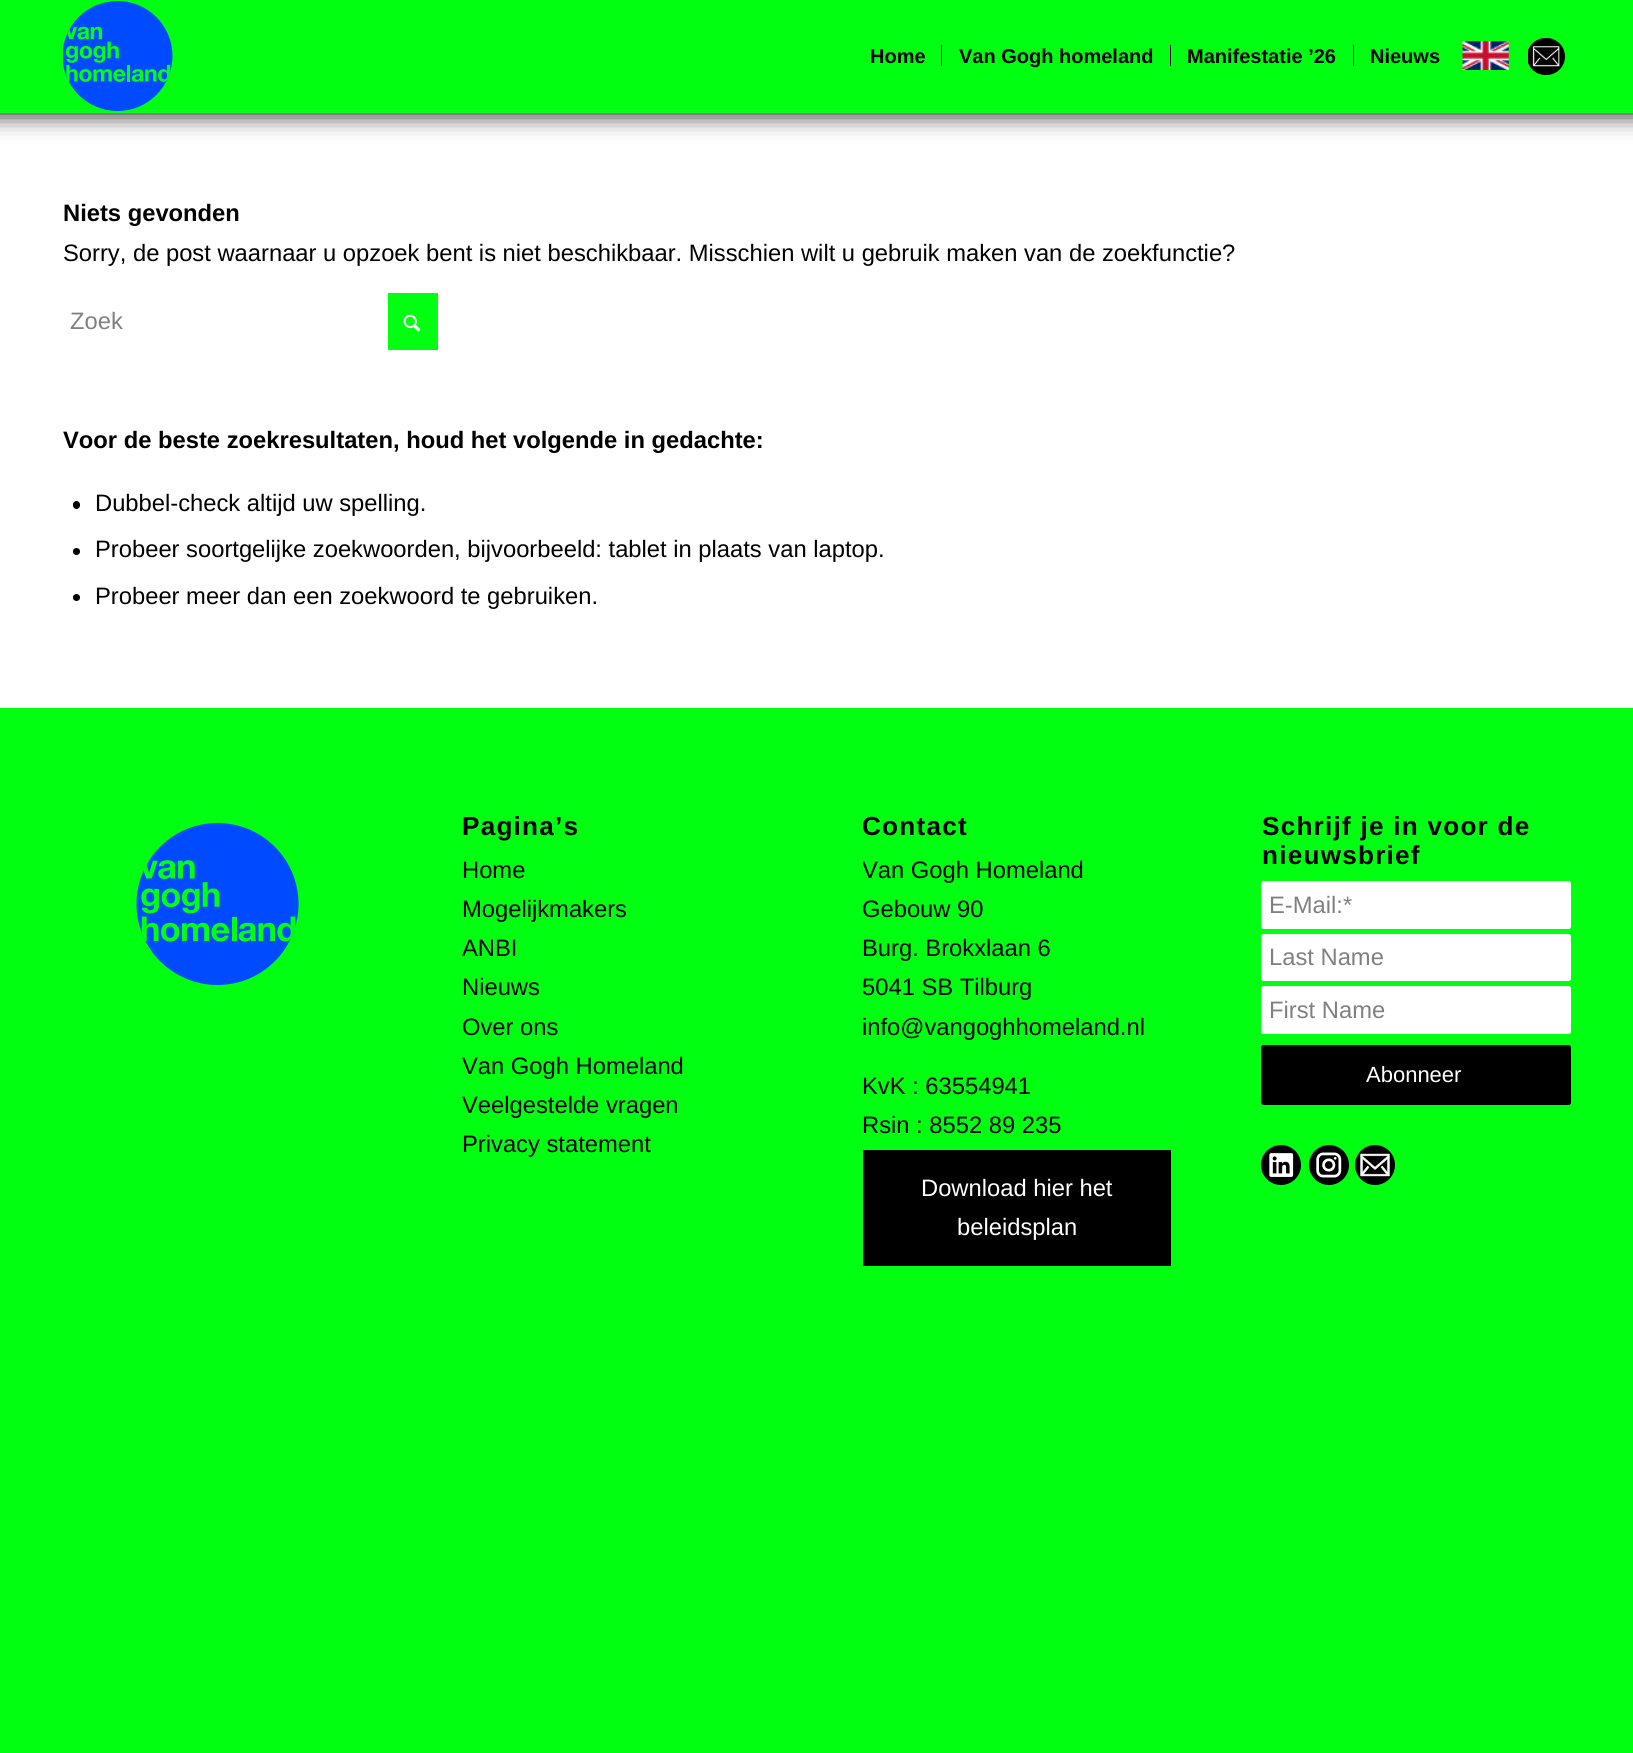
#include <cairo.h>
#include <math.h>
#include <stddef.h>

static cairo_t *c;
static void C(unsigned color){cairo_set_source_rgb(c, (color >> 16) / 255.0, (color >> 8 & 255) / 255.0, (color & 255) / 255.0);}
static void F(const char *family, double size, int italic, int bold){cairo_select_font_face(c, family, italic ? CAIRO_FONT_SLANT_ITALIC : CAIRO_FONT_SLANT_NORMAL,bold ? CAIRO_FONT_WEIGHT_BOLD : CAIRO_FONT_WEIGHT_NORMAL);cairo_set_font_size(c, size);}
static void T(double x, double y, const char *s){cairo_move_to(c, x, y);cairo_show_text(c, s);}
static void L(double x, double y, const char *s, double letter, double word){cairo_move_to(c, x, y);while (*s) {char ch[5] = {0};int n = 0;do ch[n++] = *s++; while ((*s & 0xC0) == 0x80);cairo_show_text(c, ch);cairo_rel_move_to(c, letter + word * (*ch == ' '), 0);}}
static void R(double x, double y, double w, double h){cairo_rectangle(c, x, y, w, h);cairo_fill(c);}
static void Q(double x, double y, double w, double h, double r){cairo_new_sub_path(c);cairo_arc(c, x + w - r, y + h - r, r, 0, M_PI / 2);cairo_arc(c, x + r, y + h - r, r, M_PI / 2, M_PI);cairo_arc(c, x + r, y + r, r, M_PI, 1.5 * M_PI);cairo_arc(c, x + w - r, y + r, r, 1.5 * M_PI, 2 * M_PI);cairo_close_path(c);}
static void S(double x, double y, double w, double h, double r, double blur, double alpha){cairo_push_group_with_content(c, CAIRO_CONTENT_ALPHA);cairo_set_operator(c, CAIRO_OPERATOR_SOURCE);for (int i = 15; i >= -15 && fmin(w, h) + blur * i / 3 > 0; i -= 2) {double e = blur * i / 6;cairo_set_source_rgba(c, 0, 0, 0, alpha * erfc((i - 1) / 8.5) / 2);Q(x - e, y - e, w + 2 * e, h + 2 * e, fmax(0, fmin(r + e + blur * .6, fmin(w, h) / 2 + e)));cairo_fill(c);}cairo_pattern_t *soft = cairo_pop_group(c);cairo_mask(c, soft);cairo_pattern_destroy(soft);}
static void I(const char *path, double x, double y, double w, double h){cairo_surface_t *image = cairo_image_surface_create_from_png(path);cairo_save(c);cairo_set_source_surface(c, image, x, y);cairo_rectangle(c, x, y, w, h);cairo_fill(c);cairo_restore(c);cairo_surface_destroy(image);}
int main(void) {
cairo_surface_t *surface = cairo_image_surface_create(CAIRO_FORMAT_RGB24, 1633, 1753);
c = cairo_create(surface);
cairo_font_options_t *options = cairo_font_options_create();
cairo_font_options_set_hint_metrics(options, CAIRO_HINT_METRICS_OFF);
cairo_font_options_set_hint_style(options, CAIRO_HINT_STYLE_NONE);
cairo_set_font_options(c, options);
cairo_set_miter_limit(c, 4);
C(0x00ff11);
cairo_paint(c);
C(0xffffff);
R(0,110,1633,598);
cairo_save(c);
cairo_set_fill_rule(c,CAIRO_FILL_RULE_EVEN_ODD);
cairo_new_path(c);
cairo_move_to(c,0,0);
cairo_line_to(c,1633,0);
cairo_line_to(c,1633,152);
cairo_line_to(c,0,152);
cairo_close_path(c);
cairo_move_to(c,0,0);
cairo_line_to(c,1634,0);
cairo_line_to(c,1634,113);
cairo_line_to(c,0,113);
cairo_close_path(c);
cairo_clip(c);
C(0x000000);
S(-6,-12,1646,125,0,12.5,1);
cairo_restore(c);
cairo_set_source_rgba(c,0,1,0.067,0.95);
R(0,110,1633,3);
C(0x00ff11);
R(0,111,1633,1);
I("1.png",63,1,110,110);
F("Liberation Sans",20,0,1);
C(0x000000);
T(870,63,"Home");
T(959,63,"Van Gogh homeland");
R(941,45,1,21);
T(1187,63,"Manifestatie ’26");
R(1170,45,1,21);
T(1370,63,"Nieuws");
R(1353,45,1,21);
I("2.png",1462,41,47,29);
I("3.png",1528,38,37,37);
F("Liberation Sans",23.75,0,1);
T(63,221,"Niets gevonden");
F("Liberation Sans",23.75,0,0);
T(63,261,"Sorry, de post waarnaar u opzoek bent is niet beschikbaar. Misschien wilt u gebruik maken van de zoekfunctie?");
C(0x808080);
T(70,329,"Zoek");
C(0x00ff11);
R(388,293,50,57);
I("4.png",403,314,18,18);
F("Liberation Sans",23.75,0,1);
C(0x000000);
T(63,448,"Voor de beste zoekresultaten, houd het volgende in gedachte:");
Q(73,501,7,8,3.5);
cairo_fill(c);
F("Liberation Sans",23.75,0,0);
T(95,511,"Dubbel-check altijd uw spelling.");
cairo_new_path(c);
cairo_arc(c,76.5,551.5,3.5,0,2 * M_PI);
cairo_fill(c);
T(95,557,"Probeer soortgelijke zoekwoorden, bijvoorbeeld: tablet in plaats van laptop.");
cairo_new_path(c);
cairo_arc(c,76.5,597.5,3.5,0,2 * M_PI);
cairo_fill(c);
T(95,604,"Probeer meer dan een zoekwoord te gebruiken.");
I("5.png",136,823,163,162);
F("Liberation Sans",26.1,0,1);
L(462,835,"Pagina’s",1.25,0);
F("Liberation Sans",23.75,0,0);
T(462,878,"Home");
T(462,917,"Mogelijkmakers");
T(462,956,"ANBI");
T(462,995,"Nieuws");
T(462,1035,"Over ons");
T(462,1074,"Van Gogh Homeland");
T(462,1113,"Veelgestelde vragen");
T(462,1152,"Privacy statement");
F("Liberation Sans",26.1,0,1);
L(862,835,"Contact",1.25,0);
cairo_save(c);
cairo_rectangle(c,863,790,308,360);
cairo_clip(c);
F("Liberation Sans",23.75,0,0);
T(862,878,"Van Gogh Homeland");
cairo_restore(c);
F("Liberation Sans",23.75,0,0);
T(862,917,"Gebouw 90");
T(862,956,"Burg. Brokxlaan 6");
T(862,995,"5041 SB Tilburg");
T(862,1035,"info@vangoghhomeland.nl");
T(862,1094,"KvK : 63554941");
T(862,1133,"Rsin : 8552 89 235");
R(863,1150,308,116);
C(0xffffff);
T(921,1196,"Download hier het");
T(957,1235,"beleidsplan");
F("Liberation Sans",26.1,0,1);
C(0x000000);
L(1262,835,"Schrijf je in voor de",1.25,0);
L(1262,864,"nieuwsbrief",1.25,0);
C(0xffffff);
Q(1261,881,310,48,2.5);
cairo_fill(c);
F("Liberation Sans",23.75,0,0);
C(0x808080);
T(1269,913,"E-Mail:*");
C(0xffffff);
Q(1261,934,310,47,2.5);
cairo_fill(c);
C(0x808080);
T(1269,965,"Last Name");
C(0xffffff);
Q(1261,986,310,48,2.5);
cairo_fill(c);
C(0x808080);
T(1269,1018,"First Name");
C(0x000000);
Q(1261,1045,310,60,2.5);
cairo_fill(c);
R(1263,1104,307,1);
F("Liberation Sans",22,0,0);
C(0xffffff);
T(1366,1082,"Abonneer");
I("6.png",1261,1145,40,40);
I("7.png",1309,1145,40,40);
I("8.png",1355,1145,40,40);
cairo_surface_write_to_png(surface, "o.png");
cairo_font_options_destroy(options);
cairo_destroy(c);
cairo_surface_destroy(surface);
return 0;
}
